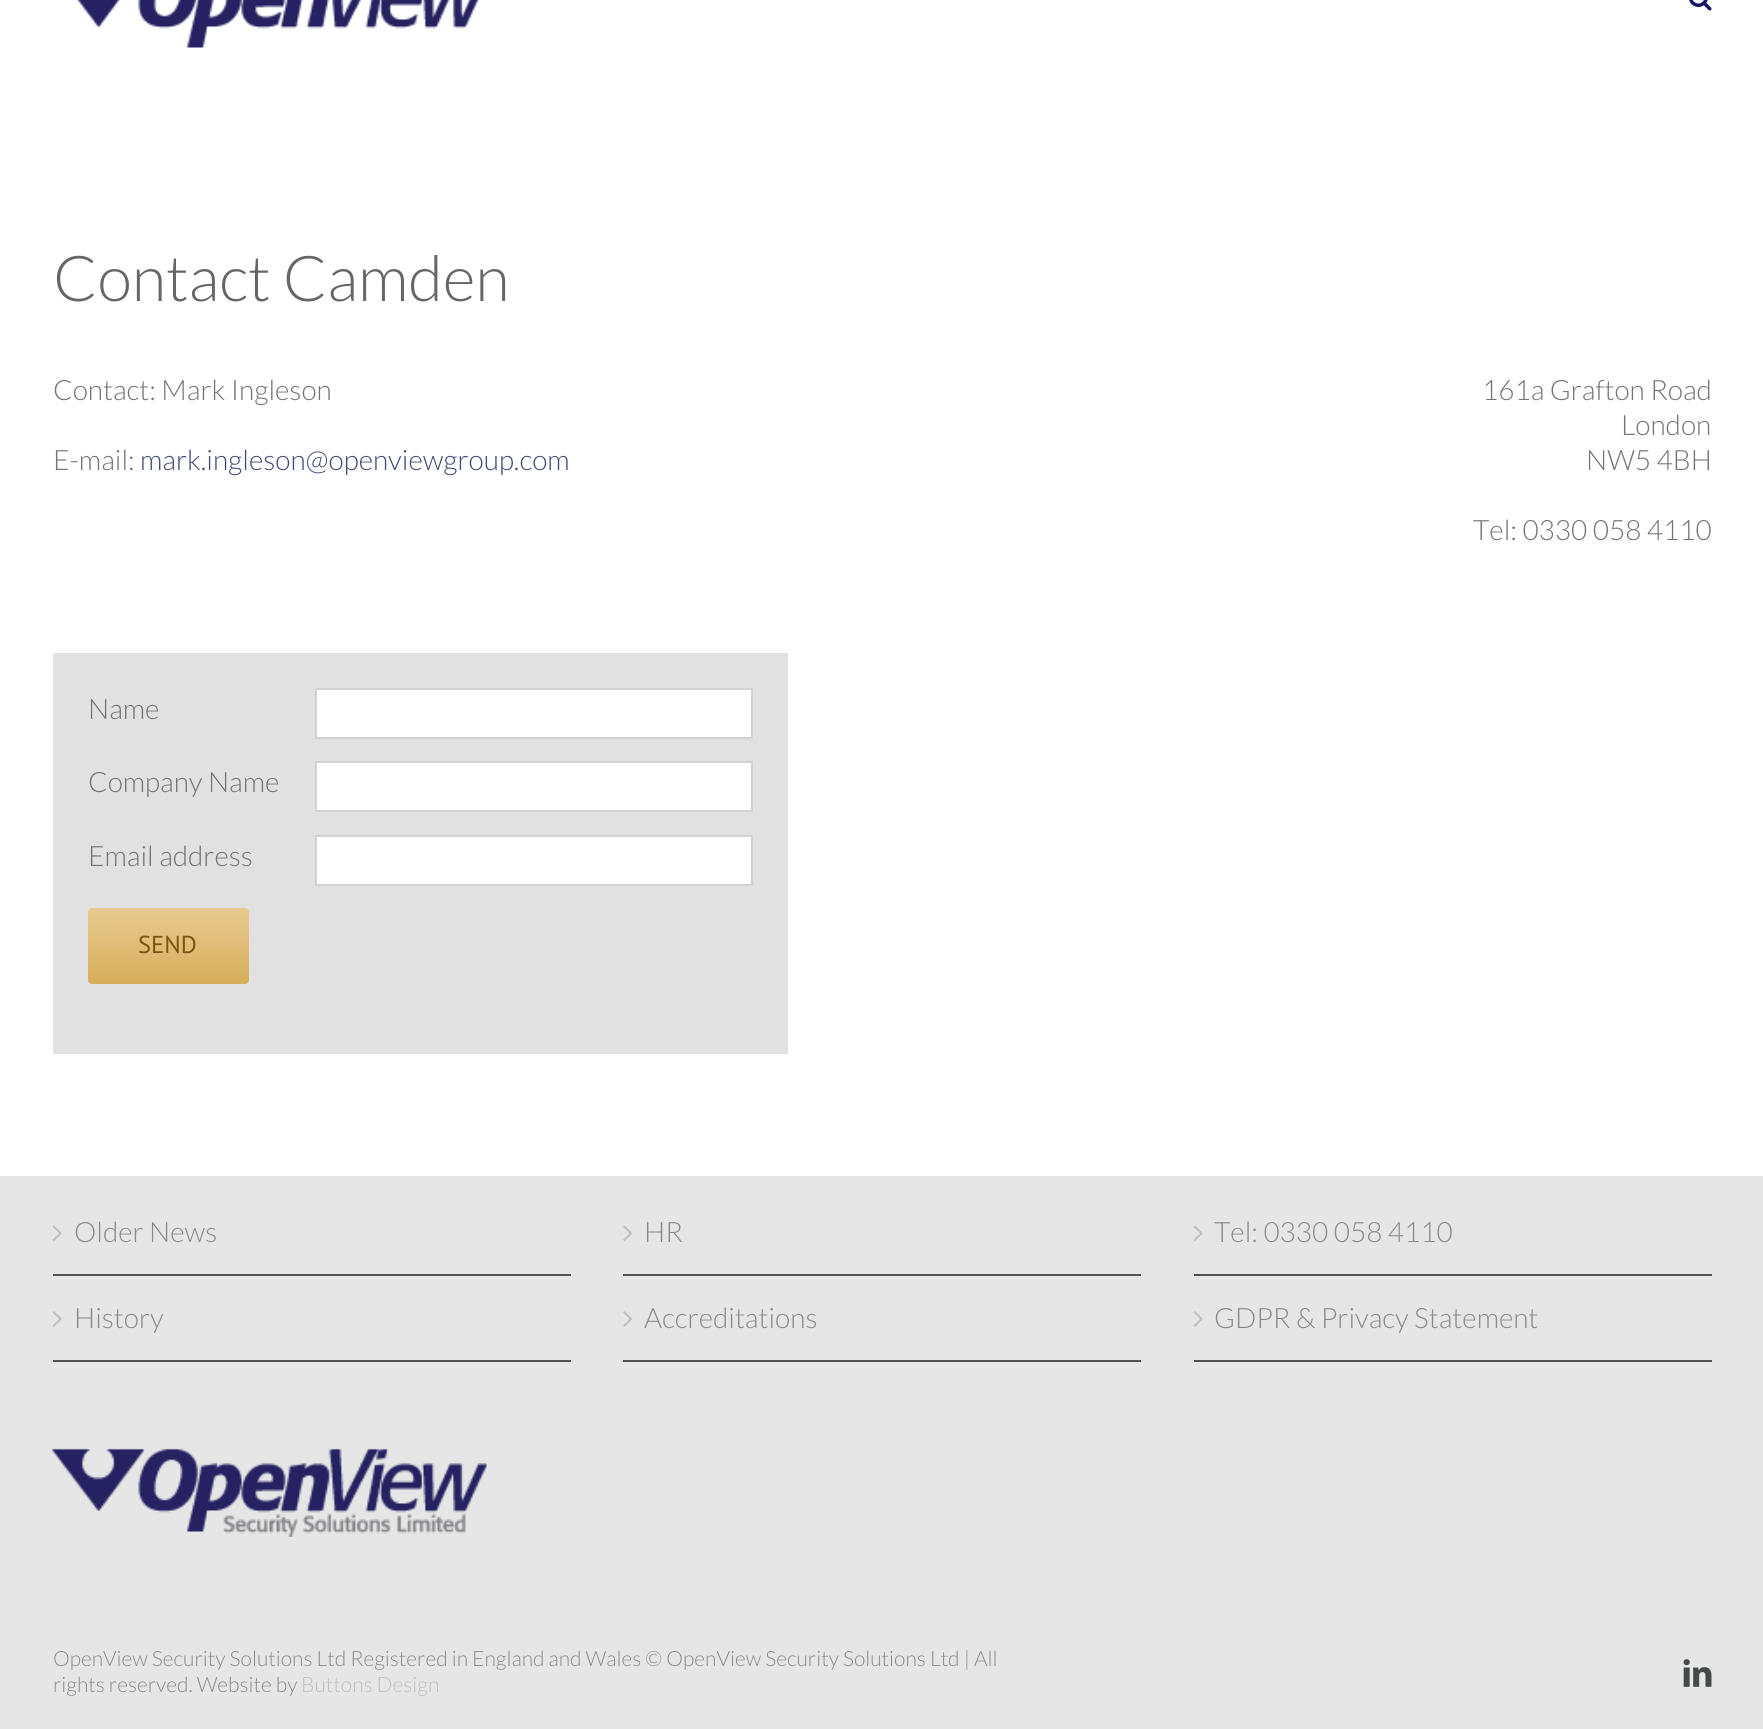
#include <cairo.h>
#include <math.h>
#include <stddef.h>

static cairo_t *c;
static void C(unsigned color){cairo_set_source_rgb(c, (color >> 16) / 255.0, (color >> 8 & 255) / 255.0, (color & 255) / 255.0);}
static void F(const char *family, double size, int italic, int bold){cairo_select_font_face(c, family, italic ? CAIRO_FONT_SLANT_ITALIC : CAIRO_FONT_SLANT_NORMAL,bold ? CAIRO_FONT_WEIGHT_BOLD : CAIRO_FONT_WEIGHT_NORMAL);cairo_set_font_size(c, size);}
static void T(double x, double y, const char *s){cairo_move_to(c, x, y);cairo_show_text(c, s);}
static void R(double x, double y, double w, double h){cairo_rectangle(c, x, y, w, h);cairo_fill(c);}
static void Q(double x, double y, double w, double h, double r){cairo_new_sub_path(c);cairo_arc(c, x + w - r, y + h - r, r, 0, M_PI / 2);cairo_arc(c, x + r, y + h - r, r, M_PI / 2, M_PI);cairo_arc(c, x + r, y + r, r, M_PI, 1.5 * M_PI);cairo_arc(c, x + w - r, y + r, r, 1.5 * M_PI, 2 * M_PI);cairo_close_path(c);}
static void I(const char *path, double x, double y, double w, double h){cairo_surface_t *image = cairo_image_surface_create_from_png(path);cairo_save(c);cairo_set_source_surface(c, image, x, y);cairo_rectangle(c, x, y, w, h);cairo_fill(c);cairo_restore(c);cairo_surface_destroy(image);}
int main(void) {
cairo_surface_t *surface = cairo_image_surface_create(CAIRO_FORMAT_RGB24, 1763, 1729);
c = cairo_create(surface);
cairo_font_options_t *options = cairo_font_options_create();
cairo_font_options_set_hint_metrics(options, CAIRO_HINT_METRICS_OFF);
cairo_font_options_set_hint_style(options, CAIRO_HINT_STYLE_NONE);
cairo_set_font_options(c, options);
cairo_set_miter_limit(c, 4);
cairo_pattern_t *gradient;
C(0xffffff);
cairo_paint(c);
I("1.png",76,0,404,48);
I("2.png",1689,0,23,11);
F("Lato Light",63.25,0,0);
C(0x666666);
T(53,301,"Contact Camden");
F("Lato Light",28,0,0);
C(0x747474);
T(53,400,"Contact: Mark Ingleson");
T(53,470,"E-mail:");
C(0x414975);
T(140,470,"mark.ingleson@openviewgroup.com");
C(0xe1e1e1);
R(53,653,735,401);
C(0x747474);
T(88,719,"Name");
C(0xffffff);
cairo_rectangle(c,316,689,436,49);
cairo_fill_preserve(c);
C(0xd2d2d2);
cairo_stroke(c);
C(0x747474);
T(88,792,"Company Name");
C(0xffffff);
cairo_rectangle(c,316,762,436,49);
cairo_fill_preserve(c);
C(0xd2d2d2);
cairo_stroke(c);
C(0x747474);
T(88,866,"Email address");
C(0xffffff);
cairo_rectangle(c,316,836,436,49);
cairo_fill_preserve(c);
C(0xd2d2d2);
cairo_stroke(c);
gradient = cairo_pattern_create_linear(168,984,168,908);
cairo_pattern_add_color_stop_rgba(gradient,0,0.839,0.678,0.353,1);
cairo_pattern_add_color_stop_rgba(gradient,1,0.91,0.796,0.565,1);
cairo_set_source(c,gradient);
cairo_pattern_destroy(gradient);
Q(88,908,161,76,4);
cairo_fill(c);
F("PT Sans",24.5,0,0);
C(0x785510);
T(138,953,"SEND");
F("Lato Light",28,0,0);
C(0x747474);
T(1482,400,"161a Grafton Road");
T(1621,435,"London");
T(1586,470,"NW5 4BH");
T(1473,540,"Tel: 0330 058 4110");
C(0xe6e6e6);
R(0,1176,1763,553);
C(0x505152);
R(53,1274,518,2);
I("3.png",52,1225,10,16);
C(0x8c8989);
T(74,1242,"Older News");
C(0x505152);
R(53,1360,518,2);
I("4.png",52,1311,10,16);
C(0x8c8989);
T(74,1328,"History");
I("5.png",52,1448,435,89);
C(0x505152);
R(623,1274,518,2);
I("6.png",623,1225,10,16);
C(0x8c8989);
T(644,1242,"HR");
C(0x505152);
R(623,1360,518,2);
I("7.png",623,1311,9,16);
C(0x8c8989);
T(644,1328,"Accreditations");
C(0x505152);
R(1194,1274,518,2);
I("3.png",1193,1225,10,16);
C(0x8c8989);
T(1214,1242,"Tel: 0330 058 4110");
C(0x505152);
R(1194,1360,518,2);
I("4.png",1193,1311,10,16);
C(0x8c8989);
T(1214,1328,"GDPR & Privacy Statement");
F("Lato Light",21,0,0);
T(53,1666,"OpenView Security Solutions Ltd Registered in England and Wales © OpenView Security Solutions Ltd | All");
T(53,1692,"rights reserved. Website by");
C(0xbfbfbf);
T(301,1692,"Buttons Design");
I("8.png",1683,1659,29,28);
cairo_surface_write_to_png(surface, "o.png");
cairo_font_options_destroy(options);
cairo_destroy(c);
cairo_surface_destroy(surface);
return 0;
}
